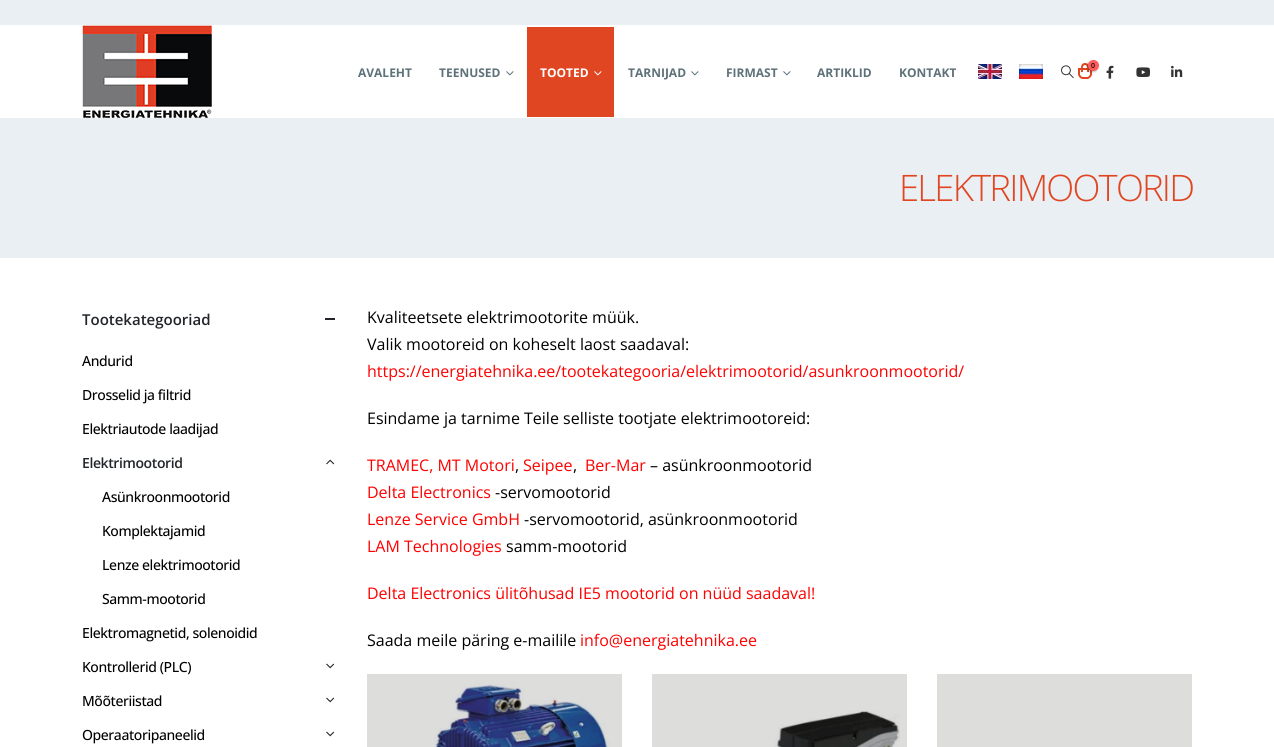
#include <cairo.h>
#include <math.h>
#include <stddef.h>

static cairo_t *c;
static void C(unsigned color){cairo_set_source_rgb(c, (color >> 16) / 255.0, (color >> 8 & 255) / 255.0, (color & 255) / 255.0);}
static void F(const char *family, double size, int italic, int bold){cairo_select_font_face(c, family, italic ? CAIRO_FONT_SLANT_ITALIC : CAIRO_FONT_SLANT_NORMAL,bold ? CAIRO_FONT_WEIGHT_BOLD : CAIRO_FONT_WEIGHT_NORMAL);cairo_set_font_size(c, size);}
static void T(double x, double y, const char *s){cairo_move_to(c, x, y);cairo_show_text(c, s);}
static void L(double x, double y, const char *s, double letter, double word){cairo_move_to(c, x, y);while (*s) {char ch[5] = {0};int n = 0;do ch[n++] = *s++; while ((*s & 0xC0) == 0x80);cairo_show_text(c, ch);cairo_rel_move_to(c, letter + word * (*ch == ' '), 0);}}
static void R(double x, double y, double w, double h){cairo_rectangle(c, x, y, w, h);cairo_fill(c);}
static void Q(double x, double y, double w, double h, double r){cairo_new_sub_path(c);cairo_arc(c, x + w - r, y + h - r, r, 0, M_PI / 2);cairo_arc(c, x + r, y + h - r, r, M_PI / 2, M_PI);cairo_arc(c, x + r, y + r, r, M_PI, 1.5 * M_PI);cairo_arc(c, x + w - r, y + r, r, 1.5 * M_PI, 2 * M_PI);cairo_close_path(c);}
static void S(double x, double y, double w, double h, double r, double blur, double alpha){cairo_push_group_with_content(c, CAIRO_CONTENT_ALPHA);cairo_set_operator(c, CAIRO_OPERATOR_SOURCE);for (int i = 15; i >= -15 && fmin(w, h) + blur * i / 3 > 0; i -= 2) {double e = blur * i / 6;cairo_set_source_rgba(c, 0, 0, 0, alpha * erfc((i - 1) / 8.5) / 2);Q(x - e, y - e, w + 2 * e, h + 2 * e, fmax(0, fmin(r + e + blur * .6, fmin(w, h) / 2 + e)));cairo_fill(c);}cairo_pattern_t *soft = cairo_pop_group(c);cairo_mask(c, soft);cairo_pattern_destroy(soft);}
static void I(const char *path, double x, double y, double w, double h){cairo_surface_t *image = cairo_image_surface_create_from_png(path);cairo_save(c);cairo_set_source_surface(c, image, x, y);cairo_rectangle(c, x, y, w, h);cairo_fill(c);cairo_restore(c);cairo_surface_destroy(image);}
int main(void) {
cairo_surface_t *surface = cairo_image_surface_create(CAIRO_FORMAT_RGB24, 1274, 747);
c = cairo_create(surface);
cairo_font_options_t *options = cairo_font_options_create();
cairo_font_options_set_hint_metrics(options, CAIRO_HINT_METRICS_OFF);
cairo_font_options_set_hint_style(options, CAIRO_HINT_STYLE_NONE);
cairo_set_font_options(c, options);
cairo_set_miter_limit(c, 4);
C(0xffffff);
cairo_paint(c);
C(0xdddddc);
R(652,674,255,73);
R(367,674,255,73);
C(0xeaeff3);
R(0,0,1274,25);
I("1.png",82,25,130,93);
F("Open Sans",12,0,1);
C(0x5e7279);
T(358,77,"AVALEHT");
T(439,77,"TEENUSED");
I("2.png",506,71,8,5);
C(0xe04622);
R(527,27,87,90);
C(0xffffff);
T(540,77,"TOOTED");
I("3.png",594,71,8,5);
C(0x5e7279);
T(628,77,"TARNIJAD");
I("2.png",691,71,8,5);
T(726,77,"FIRMAST");
I("2.png",783,71,8,5);
T(817,77,"ARTIKLID");
T(899,77,"KONTAKT");
I("4.png",978,64,24,15);
I("5.png",1019,64,24,15);
I("6.png",1061,65,13,14);
cairo_new_path(c);
cairo_move_to(c,1079,69);
cairo_line_to(c,1091,69);
cairo_line_to(c,1091,74);
cairo_curve_to(c,1091,76,1089,78,1087,78);
cairo_line_to(c,1083,78);
cairo_curve_to(c,1081,78,1079,76,1079,74);
cairo_close_path(c);
C(0xe04622);
cairo_stroke(c);
cairo_set_fill_rule(c,CAIRO_FILL_RULE_EVEN_ODD);
cairo_new_path(c);
cairo_move_to(c,1085,63);
cairo_curve_to(c,1090,63,1089,69,1089,72);
cairo_line_to(c,1081,72);
cairo_curve_to(c,1081,69,1080,63,1085,63);
cairo_close_path(c);
cairo_move_to(c,1085,65);
cairo_curve_to(c,1088,65,1087,70,1087,72);
cairo_line_to(c,1083,72);
cairo_curve_to(c,1083,70,1082,65,1085,65);
cairo_close_path(c);
cairo_fill(c);
C(0x000000);
S(1087,61,11,11,5.5,1,.3);
C(0xff5b5b);
cairo_arc(c,1093.5,65.5,5.5,0,2 * M_PI);
cairo_fill(c);
F("Open Sans SemiBold",7,0,0);
C(0x0a0a0a);
T(1091,68,"0");
I("7.png",1106,65,8,14);
I("8.png",1136,67,15,10);
I("9.png",1171,65,12,12);
C(0xeaeff3);
R(0,118,1274,140);
F("Open Sans Light",36.5,0,0);
C(0xe04622);
L(899,201,"ELEKTRIMOOTORID",-1.8,0);
F("Open Sans SemiBold",15,0,0);
C(0x222529);
T(82,325,"Tootekategooriad");
R(325,318,10,2);
F("Open Sans Medium",14,0,0);
C(0x000000);
L(82,366,"Andurid",-.4,0);
L(82,400,"Drosselid ja filtrid",-.4,0);
L(82,434,"Elektriautode laadijad",-.4,0);
F("Open Sans SemiBold",14,0,0);
C(0x222529);
L(82,468,"Elektrimootorid",-.4,0);
I("10.png",326,459,9,6);
F("Open Sans Medium",14,0,0);
C(0x000000);
L(102,502,"Asünkroonmootorid",-.4,0);
L(102,536,"Komplektajamid",-.4,0);
L(102,570,"Lenze elektrimootorid",-.4,0);
L(102,604,"Samm-mootorid",-.4,0);
L(82,638,"Elektromagnetid, solenoidid",-.4,0);
L(82,672,"Kontrollerid (PLC)",-.4,0);
I("11.png",326,663,9,6);
L(82,706,"Mõõteriistad",-.4,0);
I("11.png",326,697,9,6);
L(82,740,"Operaatoripaneelid",-.4,0);
I("11.png",326,731,9,6);
F("Open Sans",16,0,0);
T(367,323,"Kvaliteetsete elektrimootorite müük.");
T(367,350,"Valik mootoreid on koheselt laost saadaval:");
C(0xfe0000);
T(367,377,"https://energiatehnika.ee/tootekategooria/elektrimootorid/asunkroonmootorid/");
C(0x000000);
T(367,424,"Esindame ja tarnime Teile selliste tootjate elektrimootoreid:");
C(0xfe0000);
T(367,471,"TRAMEC, MT Motori");
C(0x000000);
T(515,471,",");
C(0xfe0000);
T(523,471,"Seipee");
C(0x000000);
T(573,471,",");
C(0xfe0000);
T(585,471,"Ber-Mar");
C(0x000000);
T(650,471,"– asünkroonmootorid");
C(0xfe0000);
T(367,498,"Delta Electronics");
C(0x000000);
T(495,498,"-servomootorid");
C(0xfe0000);
T(367,525,"Lenze Service GmbH");
C(0x000000);
T(524,525,"-servomootorid, asünkroonmootorid");
C(0xfe0000);
T(367,552,"LAM Technologies");
C(0x000000);
T(506,552,"samm-mootorid");
C(0xfe0000);
T(367,599,"Delta Electronics ülitõhusad IE5 mootorid on nüüd saadaval!");
C(0x000000);
T(367,646,"Saada meile päring e-mailile");
C(0xfe0000);
T(580,646,"info@energiatehnika.ee");
I("12.png",434,681,177,66);
I("13.png",774,711,126,36);
C(0xdddddc);
R(937,674,255,73);
cairo_surface_write_to_png(surface, "o.png");
cairo_font_options_destroy(options);
cairo_destroy(c);
cairo_surface_destroy(surface);
return 0;
}
